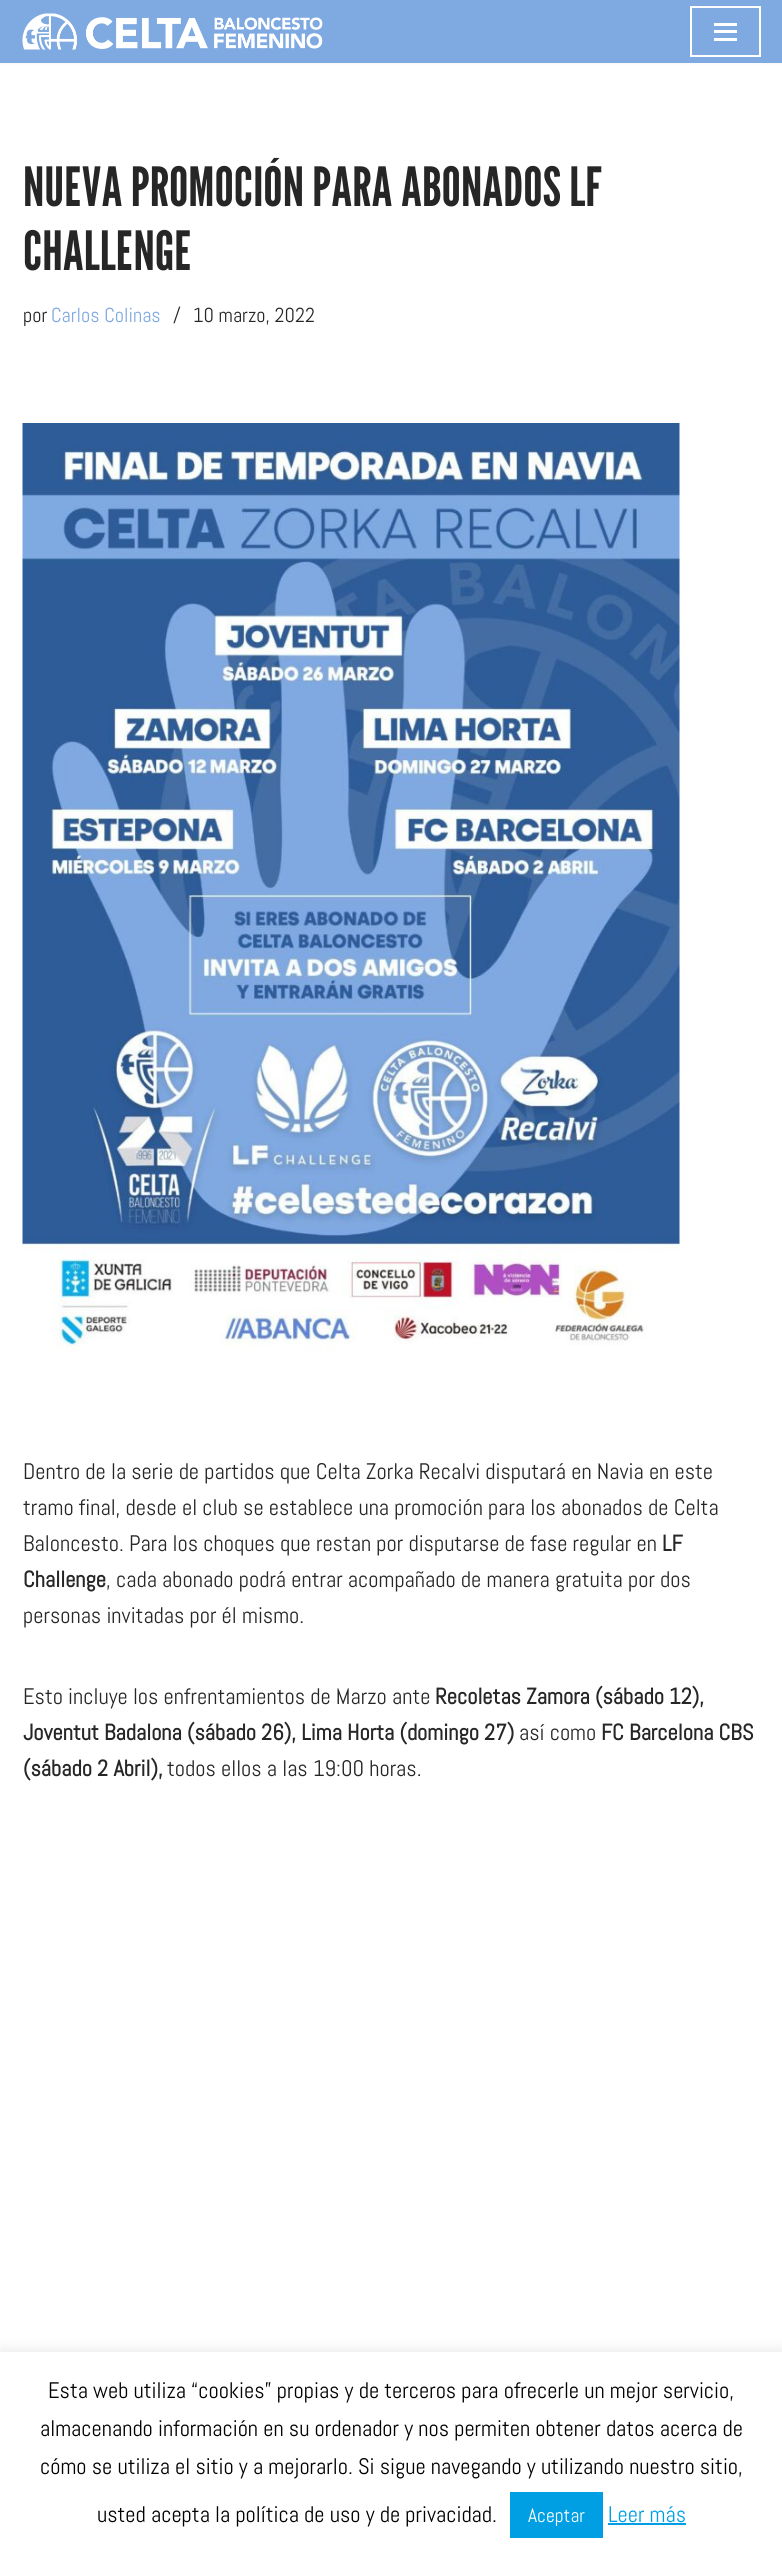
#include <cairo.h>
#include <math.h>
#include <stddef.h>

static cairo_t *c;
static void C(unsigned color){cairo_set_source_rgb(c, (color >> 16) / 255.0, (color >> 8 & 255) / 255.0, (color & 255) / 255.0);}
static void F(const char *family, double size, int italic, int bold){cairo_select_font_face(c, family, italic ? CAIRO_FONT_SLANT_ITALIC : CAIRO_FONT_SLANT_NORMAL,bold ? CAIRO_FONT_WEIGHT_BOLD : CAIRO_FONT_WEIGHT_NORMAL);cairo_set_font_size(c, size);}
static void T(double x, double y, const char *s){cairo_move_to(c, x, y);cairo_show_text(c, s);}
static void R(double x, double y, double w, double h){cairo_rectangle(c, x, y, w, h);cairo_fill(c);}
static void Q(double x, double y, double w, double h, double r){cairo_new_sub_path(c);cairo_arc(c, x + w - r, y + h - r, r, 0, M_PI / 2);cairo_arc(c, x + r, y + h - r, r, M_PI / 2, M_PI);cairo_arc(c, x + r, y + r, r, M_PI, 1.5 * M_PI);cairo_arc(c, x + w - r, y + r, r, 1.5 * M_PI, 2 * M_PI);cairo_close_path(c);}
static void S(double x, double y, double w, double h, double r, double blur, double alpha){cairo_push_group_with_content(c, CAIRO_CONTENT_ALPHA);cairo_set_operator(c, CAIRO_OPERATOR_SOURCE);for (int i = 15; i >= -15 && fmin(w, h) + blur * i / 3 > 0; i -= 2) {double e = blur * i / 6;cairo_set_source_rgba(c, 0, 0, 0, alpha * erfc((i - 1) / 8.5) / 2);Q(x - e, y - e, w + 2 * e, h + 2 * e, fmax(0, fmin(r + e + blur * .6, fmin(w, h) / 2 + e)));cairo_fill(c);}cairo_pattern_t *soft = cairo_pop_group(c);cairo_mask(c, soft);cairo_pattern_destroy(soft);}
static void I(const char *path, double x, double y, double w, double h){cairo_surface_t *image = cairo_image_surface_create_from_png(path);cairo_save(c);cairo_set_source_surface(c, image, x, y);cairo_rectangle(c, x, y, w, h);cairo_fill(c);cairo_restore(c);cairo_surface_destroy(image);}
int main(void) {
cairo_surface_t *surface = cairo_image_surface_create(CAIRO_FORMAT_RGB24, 782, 2556);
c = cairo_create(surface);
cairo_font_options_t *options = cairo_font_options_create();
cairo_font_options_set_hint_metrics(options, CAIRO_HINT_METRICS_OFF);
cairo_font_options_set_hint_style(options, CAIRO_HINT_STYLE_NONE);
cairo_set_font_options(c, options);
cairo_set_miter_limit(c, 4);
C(0xffffff);
cairo_paint(c);
C(0x000000);
S(0,-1,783,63,0,2,.1);
C(0x7ea9e1);
R(0,0,782,63);
I("1.png",22,13,301,37);
cairo_rectangle(c,691,7,69,49);
C(0xffffff);
cairo_stroke(c);
R(714,23,23,3);
R(714,30,23,3);
R(714,38,23,3);
F("League Gothic",54,0,0);
C(0x272626);
T(23,206,"NUEVA PROMOCIÓN PARA ABONADOS LF");
T(23,270,"CHALLENGE");
F("Abel",20.25,0,0);
T(23,322,"por");
C(0x7ea9e1);
T(51,322,"Carlos Colinas");
C(0x272626);
T(173,322,"/");
T(193,322,"10 marzo, 2022");
I("2.png",22,423,658,930);
F("Abel",22.5,0,0);
T(23,1479,"Dentro de la serie de partidos que Celta Zorka Recalvi disputará en Navia en este");
T(23,1515,"tramo final, desde el club se establece una promoción para los abonados de Celta");
T(23,1551,"Baloncesto. Para los choques que restan por disputarse de fase regular en");
F("Abel",22.5,0,1);
T(662,1551,"LF");
T(23,1587,"Challenge");
F("Abel",22.5,0,0);
T(106,1587,", cada abonado podrá entrar acompañado de manera gratuita por dos");
T(23,1623,"personas invitadas por él mismo.");
T(23,1704,"Esto incluye los enfrentamientos de Marzo ante");
F("Abel",22.5,0,1);
T(435,1704,"Recoletas Zamora (sábado 12),");
T(23,1740,"Joventut Badalona (sábado 26), Lima Horta (domingo 27)");
F("Abel",22.5,0,0);
T(519,1740,"así como");
F("Abel",22.5,0,1);
T(601,1740,"FC Barcelona CBS");
T(23,1776,"(sábado 2 Abril),");
F("Abel",22.5,0,0);
T(167,1776,"todos ellos a las 19:00 horas.");
C(0xacabab);
S(0,2351,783,204,0,7.5,.3);
C(0xffffff);
R(0,2352,782,204);
C(0x000000);
T(48,2398,"Esta web utiliza “cookies” propias y de terceros para ofrecerle un mejor servicio,");
T(40,2436,"almacenando información en su ordenador y nos permiten obtener datos acerca de");
T(40,2474,"cómo se utiliza el sitio y a mejorarlo. Si sigue navegando y utilizando nuestro sitio,");
T(97,2522,"usted acepta la política de uso y de privacidad.");
C(0x009fe3);
R(510,2492,93,46);
F("Abel",19.5,0,0);
C(0xffffff);
T(528,2522,"Aceptar");
F("Abel",22.5,0,0);
C(0x009fe3);
T(608,2522,"Leer más");
R(608,2523,78,2);
cairo_surface_write_to_png(surface, "o.png");
cairo_font_options_destroy(options);
cairo_destroy(c);
cairo_surface_destroy(surface);
return 0;
}
